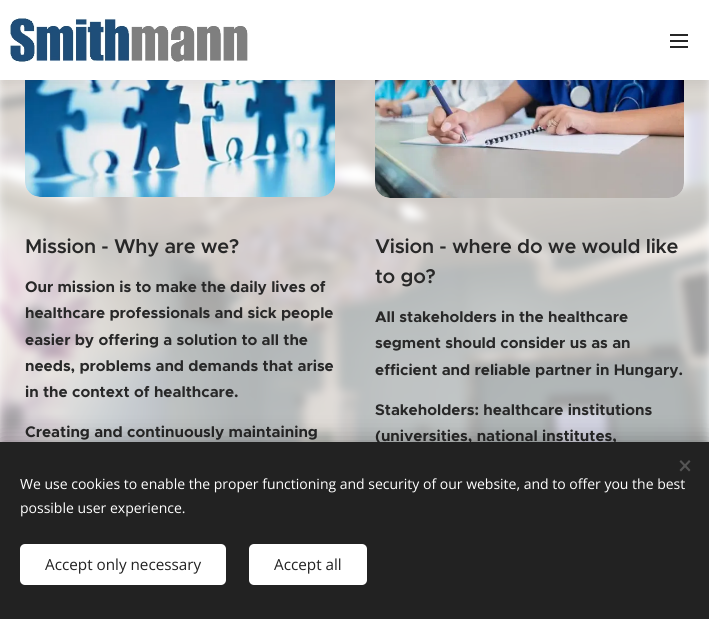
#include <cairo.h>
#include <math.h>
#include <stddef.h>

static cairo_t *c;
static void C(unsigned color){cairo_set_source_rgb(c, (color >> 16) / 255.0, (color >> 8 & 255) / 255.0, (color & 255) / 255.0);}
static void F(const char *family, double size, int italic, int bold){cairo_select_font_face(c, family, italic ? CAIRO_FONT_SLANT_ITALIC : CAIRO_FONT_SLANT_NORMAL,bold ? CAIRO_FONT_WEIGHT_BOLD : CAIRO_FONT_WEIGHT_NORMAL);cairo_set_font_size(c, size);}
static void T(double x, double y, const char *s){cairo_move_to(c, x, y);cairo_show_text(c, s);}
static void L(double x, double y, const char *s, double letter, double word){cairo_move_to(c, x, y);while (*s) {char ch[5] = {0};int n = 0;do ch[n++] = *s++; while ((*s & 0xC0) == 0x80);cairo_show_text(c, ch);cairo_rel_move_to(c, letter + word * (*ch == ' '), 0);}}
static void R(double x, double y, double w, double h){cairo_rectangle(c, x, y, w, h);cairo_fill(c);}
static void Q(double x, double y, double w, double h, double r){cairo_new_sub_path(c);cairo_arc(c, x + w - r, y + h - r, r, 0, M_PI / 2);cairo_arc(c, x + r, y + h - r, r, M_PI / 2, M_PI);cairo_arc(c, x + r, y + r, r, M_PI, 1.5 * M_PI);cairo_arc(c, x + w - r, y + r, r, 1.5 * M_PI, 2 * M_PI);cairo_close_path(c);}
static void S(double x, double y, double w, double h, double r, double blur, double alpha){cairo_push_group_with_content(c, CAIRO_CONTENT_ALPHA);cairo_set_operator(c, CAIRO_OPERATOR_SOURCE);for (int i = 15; i >= -15 && fmin(w, h) + blur * i / 3 > 0; i -= 2) {double e = blur * i / 6;cairo_set_source_rgba(c, 0, 0, 0, alpha * erfc((i - 1) / 8.5) / 2);Q(x - e, y - e, w + 2 * e, h + 2 * e, fmax(0, fmin(r + e + blur * .6, fmin(w, h) / 2 + e)));cairo_fill(c);}cairo_pattern_t *soft = cairo_pop_group(c);cairo_mask(c, soft);cairo_pattern_destroy(soft);}
static void I(const char *path, double x, double y, double w, double h){cairo_surface_t *image = cairo_image_surface_create_from_png(path);cairo_save(c);cairo_set_source_surface(c, image, x, y);cairo_rectangle(c, x, y, w, h);cairo_fill(c);cairo_restore(c);cairo_surface_destroy(image);}
int main(void) {
cairo_surface_t *surface = cairo_image_surface_create(CAIRO_FORMAT_RGB24, 709, 619);
c = cairo_create(surface);
cairo_font_options_t *options = cairo_font_options_create();
cairo_font_options_set_hint_metrics(options, CAIRO_HINT_METRICS_OFF);
cairo_font_options_set_hint_style(options, CAIRO_HINT_STYLE_NONE);
cairo_set_font_options(c, options);
cairo_set_miter_limit(c, 4);
C(0xffffff);
cairo_paint(c);
I("2.png",0,80,709,362);
I("3.png",25,80,310,117);
I("4.png",375,80,309,118);
C(0x000000);
S(0,5,709,80,0,7.5,.07);
C(0xffffff);
R(0,0,709,80);
I("1.png",10,18,238,44);
C(0x262626);
R(670,40,18,2);
R(670,34,18,2);
R(670,46,18,2);
F("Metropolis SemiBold",20,0,0);
C(0x282828);
L(25,253,"Mission - Why are we?",-.2,0);
F("Metropolis",15.4,0,1);
T(25,292,"Our mission is to make the daily lives of");
T(25,318,"healthcare professionals and sick people");
T(25,345,"easier by offering a solution to all the");
T(25,371,"needs, problems and demands that arise");
T(25,397,"in the context of healthcare.");
T(25,437,"Creating and continuously maintaining");
F("Metropolis SemiBold",20,0,0);
L(375,253,"Vision - where do we would like",-.2,0);
L(375,283,"to go?",-.2,0);
F("Metropolis",15.4,0,1);
T(375,322,"All stakeholders in the healthcare");
T(375,348,"segment should consider us as an");
T(375,375,"efficient and reliable partner in Hungary.");
T(375,415,"Stakeholders: healthcare institutions");
T(375,441,"(universities, national institutes,");
C(0x000000);
S(0,442,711,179,0,12.5,.33);
C(0x222222);
R(0,442,709,177);
C(0x555555);
cairo_new_path(c);
cairo_move_to(c,679.5,470);
cairo_line_to(c,689,460);
cairo_line_to(c,690.5,461.5);
cairo_line_to(c,681,471.5);
cairo_close_path(c);
cairo_fill(c);
cairo_new_path(c);
cairo_move_to(c,681,460);
cairo_line_to(c,690.5,470);
cairo_line_to(c,689,471.5);
cairo_line_to(c,679.5,461.5);
cairo_close_path(c);
cairo_fill(c);
F("Open Sans",14,0,0);
C(0xffffff);
T(20,489,"We use cookies to enable the proper functioning and security of our website, and to offer you the best");
T(20,513,"possible user experience.");
Q(20,544,206,41,5);
cairo_fill(c);
F("Open Sans",15.25,0,0);
C(0x222222);
T(45,570,"Accept only necessary");
C(0xffffff);
Q(249,544,118,41,5);
cairo_fill(c);
C(0x222222);
T(274,570,"Accept all");
cairo_surface_write_to_png(surface, "o.png");
cairo_font_options_destroy(options);
cairo_destroy(c);
cairo_surface_destroy(surface);
return 0;
}
